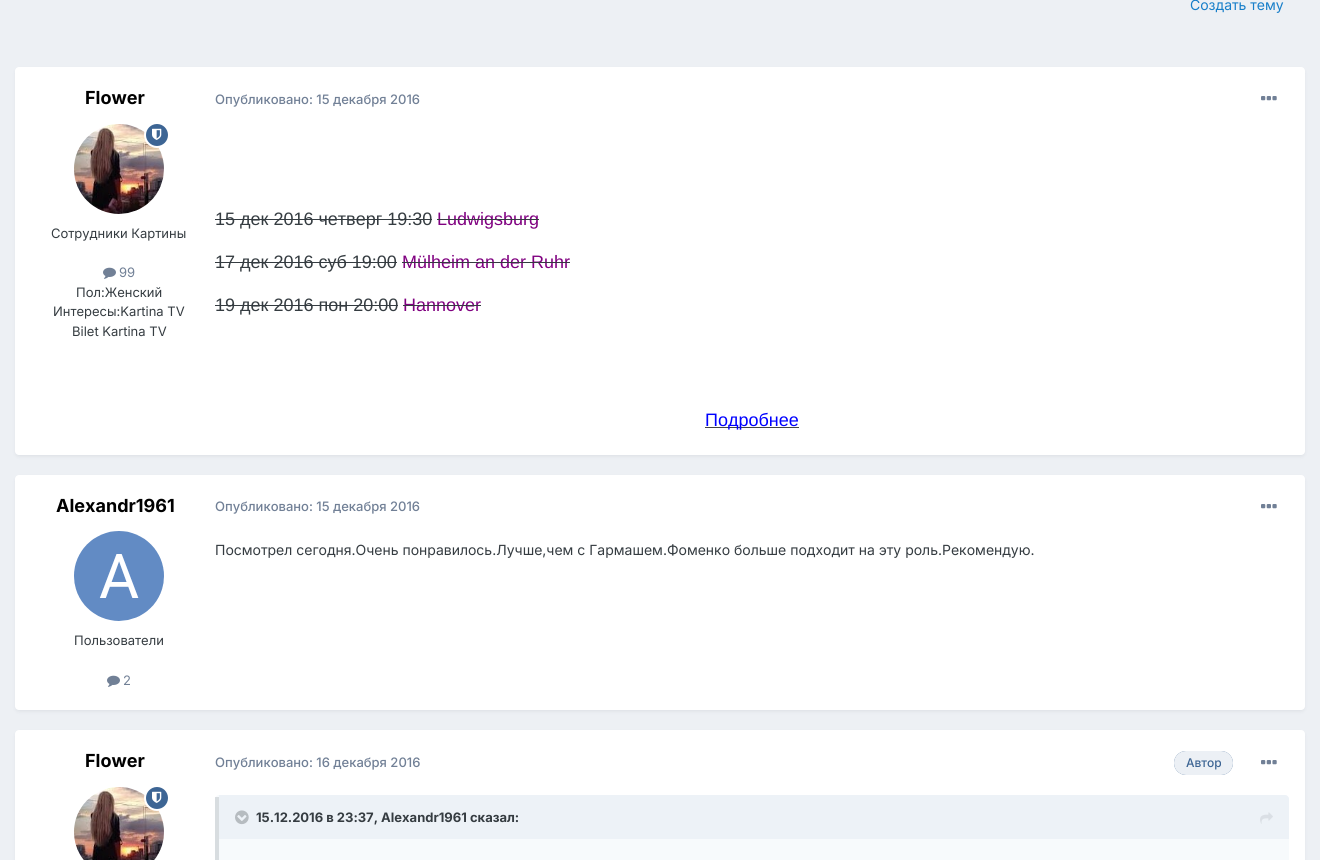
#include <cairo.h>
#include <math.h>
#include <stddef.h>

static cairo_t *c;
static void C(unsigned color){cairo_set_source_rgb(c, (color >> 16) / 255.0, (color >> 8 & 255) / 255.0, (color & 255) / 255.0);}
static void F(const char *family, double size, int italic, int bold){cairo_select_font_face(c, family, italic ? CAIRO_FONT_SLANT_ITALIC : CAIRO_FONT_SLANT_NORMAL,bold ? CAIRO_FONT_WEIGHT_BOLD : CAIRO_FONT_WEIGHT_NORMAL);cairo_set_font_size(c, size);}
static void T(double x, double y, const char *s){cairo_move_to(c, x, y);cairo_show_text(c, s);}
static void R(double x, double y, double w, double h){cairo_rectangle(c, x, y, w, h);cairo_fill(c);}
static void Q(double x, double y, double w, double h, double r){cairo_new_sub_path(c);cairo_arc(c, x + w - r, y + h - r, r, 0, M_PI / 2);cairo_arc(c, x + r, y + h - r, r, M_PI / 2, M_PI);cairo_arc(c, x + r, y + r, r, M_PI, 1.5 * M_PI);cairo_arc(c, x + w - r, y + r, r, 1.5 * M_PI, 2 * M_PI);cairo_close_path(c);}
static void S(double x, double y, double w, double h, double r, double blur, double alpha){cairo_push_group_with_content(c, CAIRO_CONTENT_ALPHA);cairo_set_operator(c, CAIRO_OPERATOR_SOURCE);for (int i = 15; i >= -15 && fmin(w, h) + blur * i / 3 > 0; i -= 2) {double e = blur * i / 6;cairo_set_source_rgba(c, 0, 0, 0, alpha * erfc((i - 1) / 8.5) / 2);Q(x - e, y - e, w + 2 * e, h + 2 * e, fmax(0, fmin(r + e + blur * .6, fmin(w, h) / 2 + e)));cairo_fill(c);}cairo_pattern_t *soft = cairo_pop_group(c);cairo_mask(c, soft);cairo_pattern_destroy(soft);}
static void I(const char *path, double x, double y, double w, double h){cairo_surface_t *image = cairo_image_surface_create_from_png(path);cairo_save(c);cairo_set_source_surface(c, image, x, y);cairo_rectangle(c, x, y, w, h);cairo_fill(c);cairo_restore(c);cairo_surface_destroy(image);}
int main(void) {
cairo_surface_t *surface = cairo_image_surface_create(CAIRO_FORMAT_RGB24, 1320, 860);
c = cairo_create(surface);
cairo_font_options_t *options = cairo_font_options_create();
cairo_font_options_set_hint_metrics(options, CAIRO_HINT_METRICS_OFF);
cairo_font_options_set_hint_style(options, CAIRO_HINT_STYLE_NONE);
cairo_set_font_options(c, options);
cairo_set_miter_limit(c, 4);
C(0xedf0f4);
cairo_paint(c);
F("Inter",14,0,0);
C(0x177ec9);
T(1190,10,"Создать тему");
C(0x2d3748);
S(16,70,1288,386,3,2,.1);
C(0xffffff);
Q(15,67,1290,388,4);
cairo_fill(c);
F("Inter",18,0,1);
C(0x000000);
T(85,104,"Flower");
I("2.png",74,124,90,90);
C(0x3d6594);
cairo_arc(c,157,135,12,0,2 * M_PI);
cairo_fill_preserve(c);
C(0xffffff);
cairo_stroke(c);
I("1.png",152,128,10,12);
F("Inter",13,0,0);
C(0x353c41);
T(51,238,"Сотрудники Картины");
I("3.png",103,267,13,12);
C(0x718096);
T(119,277,"99");
C(0x353c41);
T(76,297,"Пол:Женский");
T(53,316,"Интересы:Kartina TV");
T(72,336,"Bilet Kartina TV");
F("Inter Medium",13,0,0);
C(0x718096);
T(215,104,"Опубликовано: 15 декабря 2016");
I("4.png",1261,96,16,5);
F("Liberation Sans",18,0,0);
C(0x353c41);
T(215,225,"15 дек 2016 четверг 19:30");
R(215,219,217,1);
C(0x800080);
T(437,225,"Ludwigsburg");
C(0x353c41);
R(437,219,102,1);
T(215,268,"17 дек 2016 суб 19:00");
R(215,262,182,1);
C(0x800080);
T(402,268,"Mülheim an der Ruhr");
C(0x353c41);
R(402,262,168,1);
T(215,311,"19 дек 2016 пон 20:00");
R(215,305,183,1);
C(0x800080);
T(403,311,"Hannover");
C(0x353c41);
R(403,305,78,1);
C(0x444444);
R(705,427,94,1);
C(0x0000ff);
T(705,426,"Подробнее");
C(0x2d3748);
S(16,478,1288,233,3,2,.1);
C(0xffffff);
Q(15,475,1290,235,4);
cairo_fill(c);
F("Inter",18,0,1);
C(0x000000);
T(56,512,"Alexandr1961");
I("5.png",74,531,90,90);
F("Inter",13,0,0);
C(0x353c41);
T(74,645,"Пользователи");
I("3.png",107,675,13,12);
C(0x718096);
T(123,685,"2");
F("Inter Medium",13,0,0);
T(215,511,"Опубликовано: 15 декабря 2016");
I("4.png",1261,504,16,5);
F("Inter",14,0,0);
C(0x353c41);
T(215,555,"Посмотрел сегодня.Очень понравилось.Лучше,чем с Гармашем.Фоменко больше подходит на эту роль.Рекомендую.");
C(0x2d3748);
S(16,733,1288,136,3,2,.1);
C(0xffffff);
Q(15,730,1290,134,4);
cairo_fill(c);
F("Inter",18,0,1);
C(0x000000);
T(85,767,"Flower");
I("6.png",74,787,90,73);
C(0x3d6594);
cairo_arc(c,157,798,12,0,2 * M_PI);
cairo_fill_preserve(c);
C(0xffffff);
cairo_stroke(c);
I("1.png",152,791,10,12);
F("Inter Medium",13,0,0);
C(0x718096);
T(215,767,"Опубликовано: 16 декабря 2016");
C(0x3d6594);
Q(1174,751,59,24,12);
cairo_fill(c);
cairo_set_source_rgba(c,1,1,1,0.9);
Q(1174,751,59,24,12);
cairo_fill(c);
F("Inter Medium",12,0,0);
C(0x3d6594);
T(1186,767,"Автор");
I("4.png",1261,760,16,5);
C(0xf7fafc);
Q(215,795,1074,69,4);
cairo_fill(c);
cairo_set_source_rgba(c,0.176,0.216,0.282,0.15);
R(215,797,4,63);
C(0xedf2f7);
cairo_new_path(c);
cairo_move_to(c,219,795);
cairo_line_to(c,1285,795);
cairo_curve_to(c,1287,795,1289,797,1289,799);
cairo_line_to(c,1289,839);
cairo_line_to(c,219,839);
cairo_close_path(c);
cairo_fill(c);
I("7.png",235,810,14,15);
F("Inter",13,0,1);
C(0x353c41);
T(256,822,"15.12.2016 в 23:37, Alexandr1961 сказал:");
I("8.png",1260,812,13,12);
cairo_surface_write_to_png(surface, "o.png");
cairo_font_options_destroy(options);
cairo_destroy(c);
cairo_surface_destroy(surface);
return 0;
}
